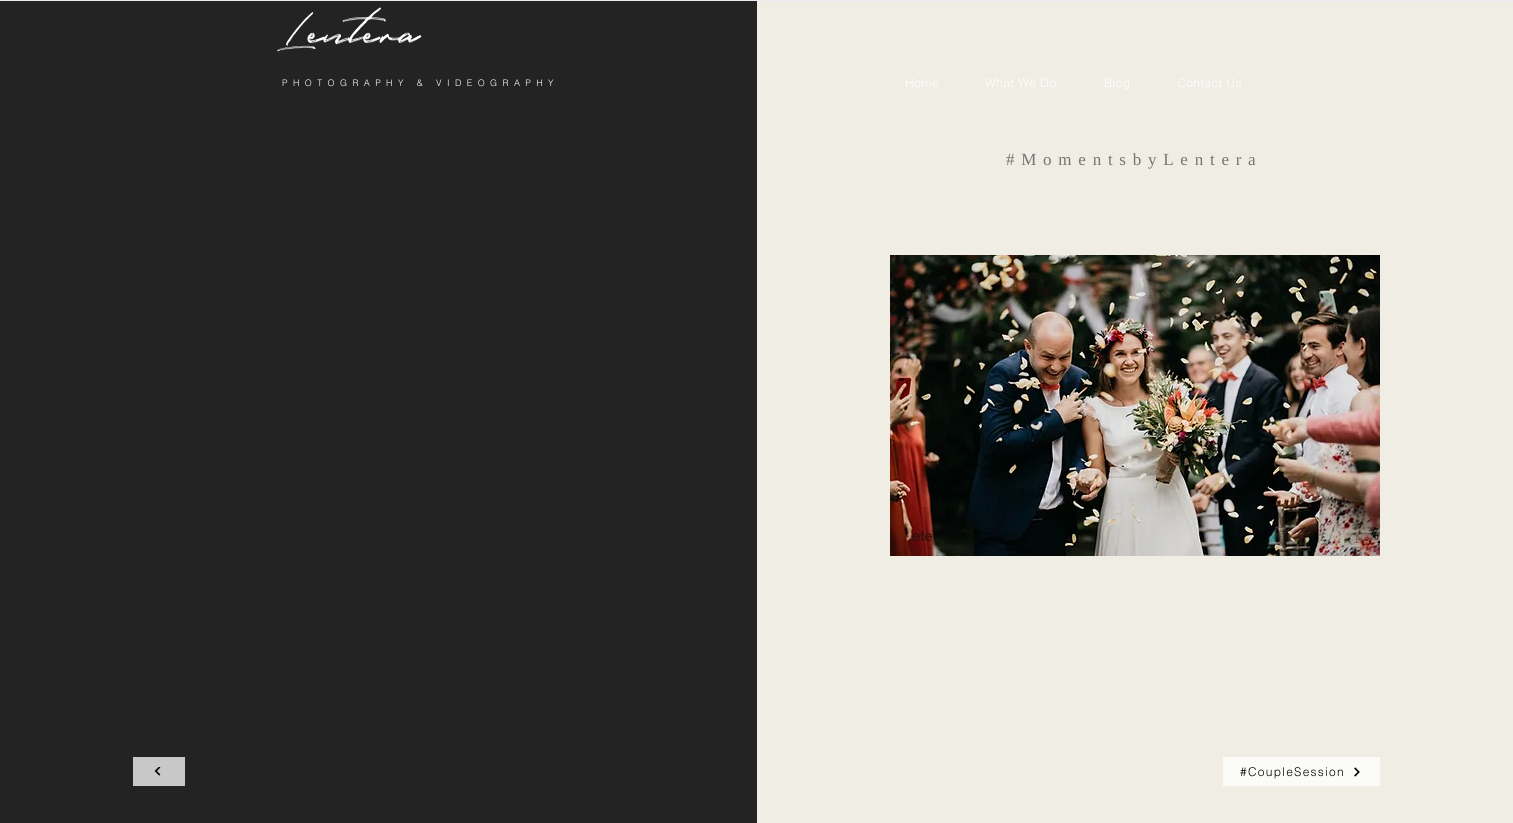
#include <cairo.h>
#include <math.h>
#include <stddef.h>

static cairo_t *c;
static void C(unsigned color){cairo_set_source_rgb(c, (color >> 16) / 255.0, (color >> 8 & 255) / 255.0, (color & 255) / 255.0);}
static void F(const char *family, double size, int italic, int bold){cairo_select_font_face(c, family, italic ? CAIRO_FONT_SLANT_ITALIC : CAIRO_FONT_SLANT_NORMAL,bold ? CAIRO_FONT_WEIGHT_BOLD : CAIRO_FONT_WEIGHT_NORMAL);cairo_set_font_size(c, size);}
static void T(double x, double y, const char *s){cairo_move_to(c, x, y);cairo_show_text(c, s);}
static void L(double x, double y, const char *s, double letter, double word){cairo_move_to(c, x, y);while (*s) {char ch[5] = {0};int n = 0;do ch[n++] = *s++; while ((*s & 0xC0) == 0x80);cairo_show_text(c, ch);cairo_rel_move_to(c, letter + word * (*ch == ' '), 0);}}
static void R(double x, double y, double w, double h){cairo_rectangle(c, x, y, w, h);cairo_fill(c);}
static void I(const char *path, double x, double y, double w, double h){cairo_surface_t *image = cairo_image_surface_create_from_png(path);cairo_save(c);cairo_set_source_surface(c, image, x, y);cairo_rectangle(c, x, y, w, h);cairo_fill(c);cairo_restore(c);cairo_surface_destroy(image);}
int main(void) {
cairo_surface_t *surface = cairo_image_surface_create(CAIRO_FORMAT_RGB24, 1513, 823);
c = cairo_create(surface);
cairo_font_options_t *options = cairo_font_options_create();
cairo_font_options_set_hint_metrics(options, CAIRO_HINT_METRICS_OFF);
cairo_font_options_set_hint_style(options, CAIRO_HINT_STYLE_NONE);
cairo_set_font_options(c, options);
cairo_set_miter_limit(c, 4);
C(0xece9f0);
cairo_paint(c);
C(0x242323);
R(0,1,757,822);
F("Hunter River",46,0,0);
C(0xffffff);
T(282,43,"Lentera");
F("helvetica Light",9,0,0);
L(282,86,"PHOTOGRAPHY & VIDEOGRAPHY",5.4,0);
C(0xf0ede4);
R(757,1,756,822);
F("helvetica Light",12,0,0);
C(0xffffff);
L(905,87,"Home",.5,0);
L(985,87,"What We Do",.5,0);
L(1104,87,"Blog",.5,0);
L(1177,87,"Contact Us",.5,0);
C(0xc8c8c8);
R(133,757,52,29);
I("1.png",154,767,7,9);
F("Liberation Serif",17,0,0);
C(0x757575);
L(1006,165,"#MomentsbyLentera",6.75,0);
I("2.png",890,255,490,301);
F("futura",16,0,0);
C(0x26110e);
T(912,541,"ete");
F("Liberation Sans",12,0,0);
C(0x8b6159);
T(1353,543,"1/8");
C(0xfbfbf8);
R(1223,757,157,29);
F("helvetica Light",12,0,0);
C(0x000000);
L(1240,776,"#CoupleSession",1.25,0);
I("3.png",1354,767,6,10);
cairo_surface_write_to_png(surface, "o.png");
cairo_font_options_destroy(options);
cairo_destroy(c);
cairo_surface_destroy(surface);
return 0;
}
